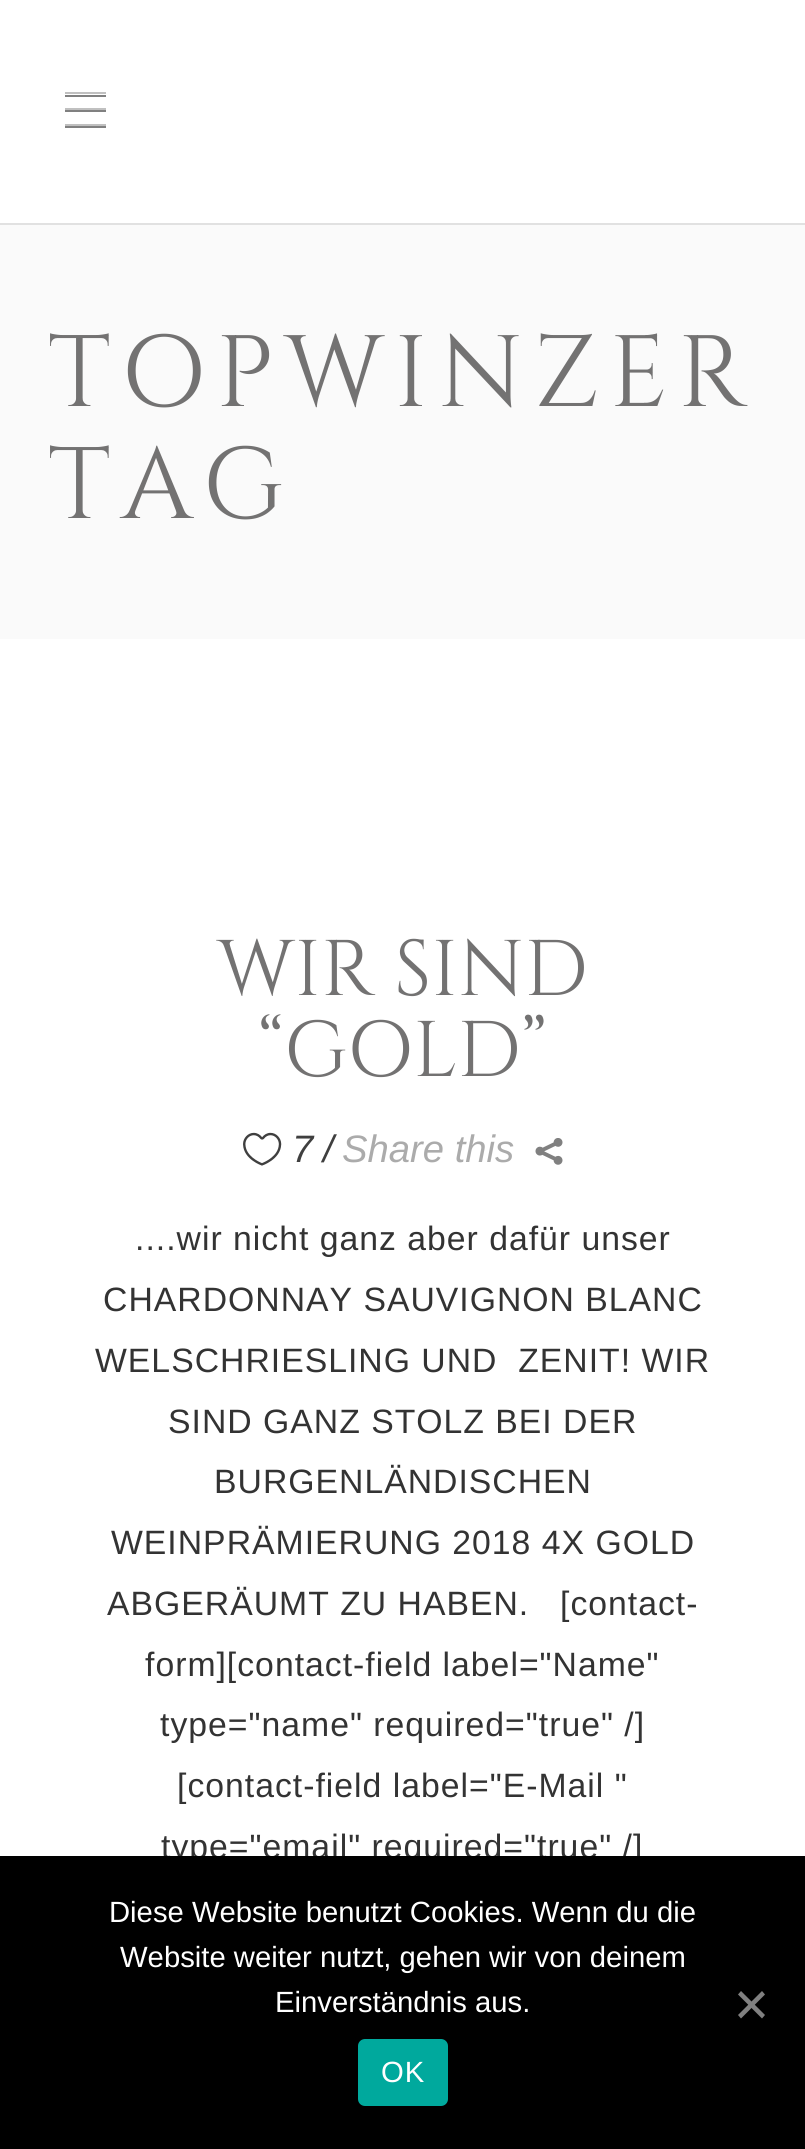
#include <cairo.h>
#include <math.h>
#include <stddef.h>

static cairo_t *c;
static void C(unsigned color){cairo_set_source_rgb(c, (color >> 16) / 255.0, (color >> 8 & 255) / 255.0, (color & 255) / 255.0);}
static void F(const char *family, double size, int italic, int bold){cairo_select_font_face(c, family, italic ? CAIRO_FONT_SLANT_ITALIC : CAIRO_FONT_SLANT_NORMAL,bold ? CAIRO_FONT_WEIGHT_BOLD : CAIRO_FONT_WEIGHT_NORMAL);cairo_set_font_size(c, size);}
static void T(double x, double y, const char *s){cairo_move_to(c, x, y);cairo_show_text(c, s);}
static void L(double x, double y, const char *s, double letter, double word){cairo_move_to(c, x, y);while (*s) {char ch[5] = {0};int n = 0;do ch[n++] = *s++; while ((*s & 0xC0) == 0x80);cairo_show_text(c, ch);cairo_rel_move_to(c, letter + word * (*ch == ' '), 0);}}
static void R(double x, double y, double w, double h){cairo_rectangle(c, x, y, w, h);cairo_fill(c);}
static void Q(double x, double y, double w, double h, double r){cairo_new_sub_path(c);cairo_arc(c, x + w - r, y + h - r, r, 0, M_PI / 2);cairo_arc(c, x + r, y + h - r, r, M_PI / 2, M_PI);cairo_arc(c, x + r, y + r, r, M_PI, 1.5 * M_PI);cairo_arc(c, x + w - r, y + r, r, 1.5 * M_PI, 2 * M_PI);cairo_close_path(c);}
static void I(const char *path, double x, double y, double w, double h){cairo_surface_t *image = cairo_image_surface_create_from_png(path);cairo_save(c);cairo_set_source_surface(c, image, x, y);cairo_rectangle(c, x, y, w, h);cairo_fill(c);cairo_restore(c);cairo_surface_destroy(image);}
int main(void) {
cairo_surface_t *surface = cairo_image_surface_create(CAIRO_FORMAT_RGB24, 805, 2149);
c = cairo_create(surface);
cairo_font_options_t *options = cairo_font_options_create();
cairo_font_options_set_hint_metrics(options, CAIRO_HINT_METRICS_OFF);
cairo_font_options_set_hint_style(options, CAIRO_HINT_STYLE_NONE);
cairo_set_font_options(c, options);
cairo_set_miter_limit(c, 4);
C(0xffffff);
cairo_paint(c);
C(0xe1e1e1);
R(0,223,805,2);
C(0x808080);
R(65,95,41,2);
C(0xc0c0c0);
R(65,92,41,2);
C(0x808080);
R(65,110,41,2);
C(0xc0c0c0);
R(65,108,41,2);
C(0x808080);
R(65,126,41,2);
C(0xc0c0c0);
R(65,124,41,2);
C(0xfafafa);
R(0,225,805,414);
F("Cinzel",101.25,0,0);
C(0x737272);
L(48,406,"TOPWINZER",10.1,0);
L(48,518,"TAG",10.1,0);
F("Cinzel",78.75,0,0);
T(217,995,"WIR SIND");
T(258,1076,"“GOLD”");
I("1.png",243,1132,39,34);
F("Liberation Sans",38.25,1,0);
C(0x3f3f3f);
T(292,1162,"7");
T(323,1162,"/");
C(0xababab);
T(342,1162,"Share this");
I("2.png",535,1138,28,27);
F("Liberation Sans",33.75,0,0);
C(0x333333);
L(135,1250,"....wir nicht ganz aber dafür unser",1,0);
L(103,1311,"CHARDONNAY SAUVIGNON BLANC",1,0);
L(95,1372,"WELSCHRIESLING UND  ZENIT! WIR",1,0);
L(168,1433,"SIND GANZ STOLZ BEI DER",1,0);
L(214,1493,"BURGENLÄNDISCHEN",1,0);
L(111,1554,"WEINPRÄMIERUNG 2018 4X GOLD",1,0);
L(107,1615,"ABGERÄUMT ZU HABEN.",1,0);
L(560,1615,"[contact-",1,0);
L(145,1676,"form][contact-field label=\"Name\"",1,0);
L(160,1736,"type=\"name\" required=\"true\" /]",1,0);
L(177,1797,"[contact-field label=\"E-Mail \"",1,0);
L(161,1858,"type=\"email\" required=\"true\" /]",1,0);
C(0x000000);
R(0,1856,805,293);
F("Liberation Sans",29.25,0,0);
C(0xffffff);
T(109,1922,"Diese Website benutzt Cookies. Wenn du die");
T(120,1967,"Website weiter nutzt, gehen wir von deinem");
T(275,2012,"Einverständnis aus.");
C(0x808080);
cairo_new_path(c);
cairo_move_to(c,762,1991);
cairo_line_to(c,765,1994.5);
cairo_line_to(c,741,2018.5);
cairo_line_to(c,738,2015);
cairo_close_path(c);
cairo_fill(c);
cairo_new_path(c);
cairo_move_to(c,738,1994.5);
cairo_line_to(c,741,1991);
cairo_line_to(c,765,2015);
cairo_line_to(c,762,2018.5);
cairo_close_path(c);
cairo_fill(c);
C(0x00a99d);
Q(358,2039,90,67,7);
cairo_fill(c);
C(0xffffff);
L(381,2082,"OK",1,0);
cairo_surface_write_to_png(surface, "o.png");
cairo_font_options_destroy(options);
cairo_destroy(c);
cairo_surface_destroy(surface);
return 0;
}
